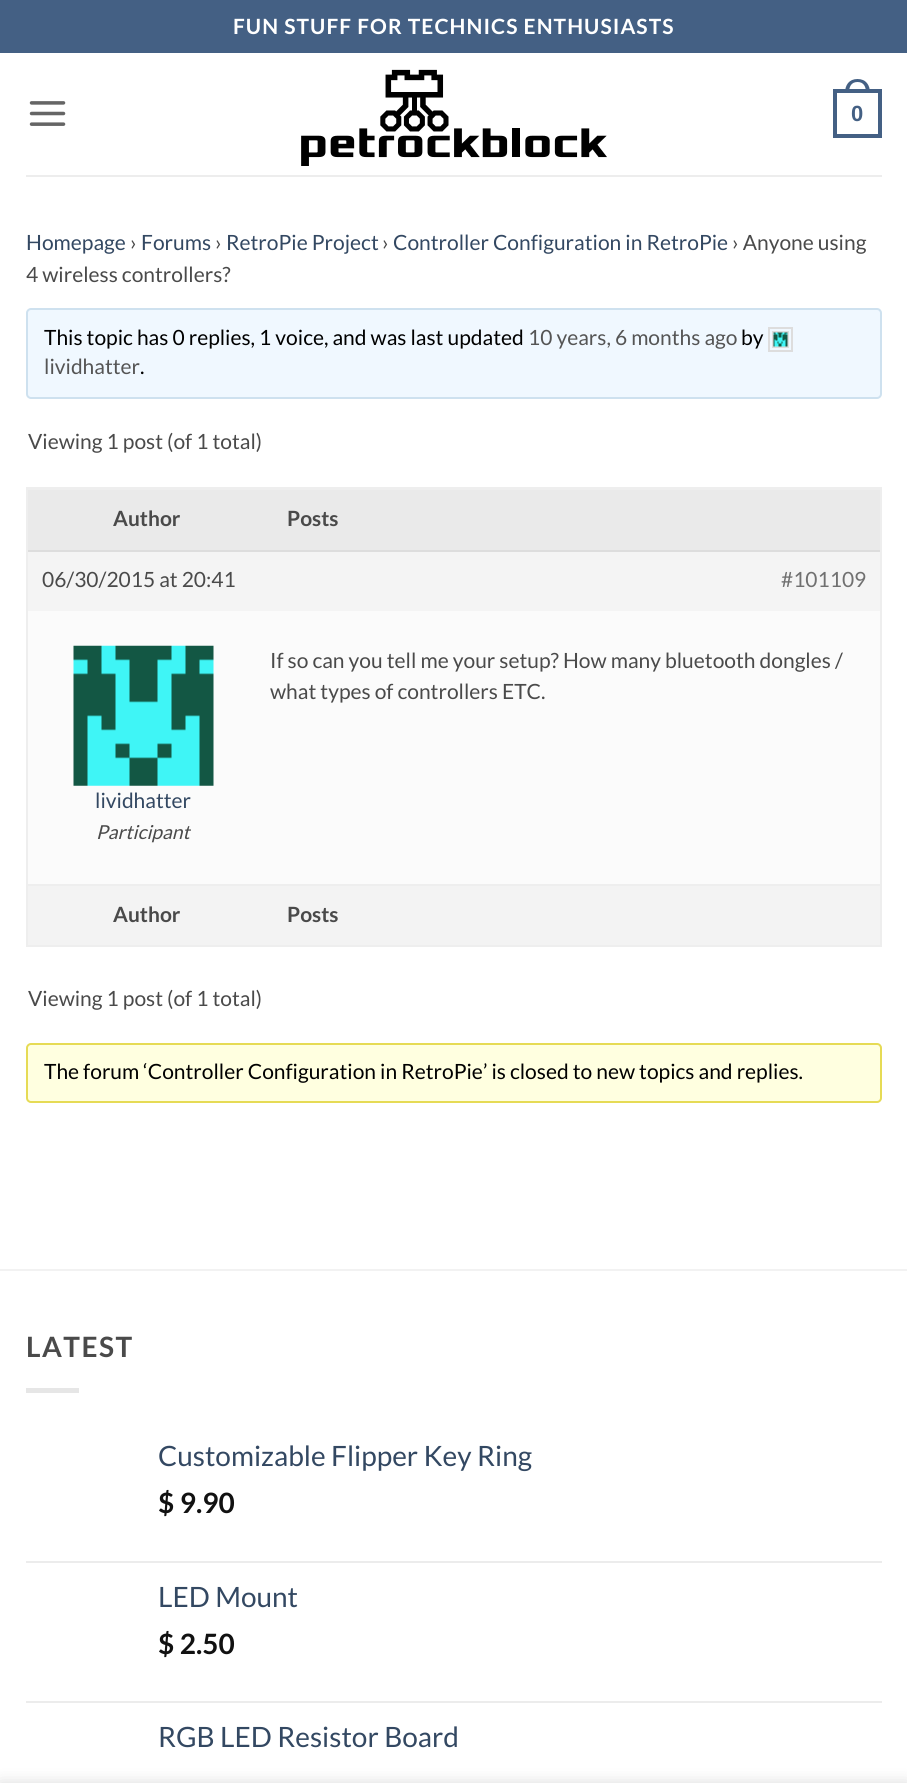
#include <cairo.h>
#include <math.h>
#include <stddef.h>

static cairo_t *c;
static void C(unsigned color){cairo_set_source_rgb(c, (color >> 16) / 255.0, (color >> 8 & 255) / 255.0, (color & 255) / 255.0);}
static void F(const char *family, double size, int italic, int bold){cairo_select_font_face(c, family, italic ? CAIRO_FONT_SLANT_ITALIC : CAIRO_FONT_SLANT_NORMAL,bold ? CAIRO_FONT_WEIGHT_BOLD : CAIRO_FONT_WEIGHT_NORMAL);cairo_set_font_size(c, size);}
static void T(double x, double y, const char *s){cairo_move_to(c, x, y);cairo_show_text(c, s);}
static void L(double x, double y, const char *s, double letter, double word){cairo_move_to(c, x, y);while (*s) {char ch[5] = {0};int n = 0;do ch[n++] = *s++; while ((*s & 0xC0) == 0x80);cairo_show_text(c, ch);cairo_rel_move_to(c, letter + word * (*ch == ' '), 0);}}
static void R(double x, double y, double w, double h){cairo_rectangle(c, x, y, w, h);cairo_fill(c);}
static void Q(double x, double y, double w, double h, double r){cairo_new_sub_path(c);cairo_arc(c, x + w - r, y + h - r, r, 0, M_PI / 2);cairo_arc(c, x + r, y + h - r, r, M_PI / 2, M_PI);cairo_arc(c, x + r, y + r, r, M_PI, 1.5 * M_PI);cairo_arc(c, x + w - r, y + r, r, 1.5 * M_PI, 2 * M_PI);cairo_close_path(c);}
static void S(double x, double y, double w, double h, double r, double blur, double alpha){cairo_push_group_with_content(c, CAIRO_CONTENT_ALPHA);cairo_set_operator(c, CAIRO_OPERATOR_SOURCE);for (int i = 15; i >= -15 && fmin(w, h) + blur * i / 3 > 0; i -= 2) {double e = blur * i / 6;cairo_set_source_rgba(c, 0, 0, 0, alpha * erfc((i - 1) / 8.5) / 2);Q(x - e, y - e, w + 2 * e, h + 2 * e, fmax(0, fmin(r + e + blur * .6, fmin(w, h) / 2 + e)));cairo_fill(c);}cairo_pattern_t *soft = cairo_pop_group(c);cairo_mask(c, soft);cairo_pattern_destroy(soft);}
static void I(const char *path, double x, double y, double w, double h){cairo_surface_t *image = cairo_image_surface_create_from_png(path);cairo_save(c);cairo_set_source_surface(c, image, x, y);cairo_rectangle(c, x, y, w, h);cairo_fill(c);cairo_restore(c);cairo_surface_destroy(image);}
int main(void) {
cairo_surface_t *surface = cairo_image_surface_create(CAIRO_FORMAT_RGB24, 907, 1783);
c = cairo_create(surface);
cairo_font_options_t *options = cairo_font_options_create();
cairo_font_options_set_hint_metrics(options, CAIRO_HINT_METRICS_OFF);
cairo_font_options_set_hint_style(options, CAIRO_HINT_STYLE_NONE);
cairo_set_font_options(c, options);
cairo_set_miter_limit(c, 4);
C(0xffffff);
cairo_paint(c);
C(0x446084);
R(0,0,907,53);
F("Lato",21,0,1);
C(0xffffff);
L(233,34,"FUN STUFF FOR TECHNICS ENTHUSIASTS",1.05,0);
I("1.png",29,101,37,25);
I("2.png",301,69,306,97);
cairo_rectangle(c,835,91,45,45);
C(0x446084);
cairo_set_line_width(c,4);
cairo_stroke(c);
cairo_set_fill_rule(c,CAIRO_FILL_RULE_EVEN_ODD);
cairo_new_path(c);
cairo_move_to(c,857.5,79);
cairo_curve_to(c,866,79,870,85,870,93);
cairo_line_to(c,845,93);
cairo_curve_to(c,845,85,849,79,857.5,79);
cairo_close_path(c);
cairo_move_to(c,857.5,82);
cairo_curve_to(c,864,82,866,87,866,93);
cairo_line_to(c,849,93);
cairo_curve_to(c,849,87,851,82,857.5,82);
cairo_close_path(c);
cairo_fill(c);
F("Liberation Sans",22,0,1);
T(851,121,"0");
C(0xededed);
R(26,175,856,2);
F("Lato",21,0,0);
C(0x334862);
T(26,250,"Homepage");
C(0x4a4a4a);
T(130,250,"›");
C(0x334862);
T(141,250,"Forums");
C(0x4a4a4a);
T(215,250,"›");
C(0x334862);
T(226,250,"RetroPie Project");
C(0x4a4a4a);
T(382,250,"›");
C(0x334862);
T(393,250,"Controller Configuration in RetroPie");
C(0x4a4a4a);
T(732,250,"› Anyone using");
T(26,282,"4 wireless controllers?");
C(0xf0f8ff);
Q(27,309,854,89,4);
cairo_fill_preserve(c);
C(0xcee1ef);
cairo_set_line_width(c,2);
cairo_stroke(c);
C(0x000000);
T(44,345,"This topic has 0 replies, 1 voice, and was last updated");
C(0x555555);
T(528,345,"10 years, 6 months ago");
C(0x000000);
T(741,345,"by");
cairo_rectangle(c,769,328,23,23);
C(0xdddddd);
cairo_stroke(c);
cairo_rectangle(c,773,332,15,15);
cairo_stroke(c);
I("3.png",773,332,15,15);
C(0x555555);
T(44,374,"lividhatter");
C(0x000000);
T(140,374,".");
C(0x4a4a4a);
T(28,449,"Viewing 1 post (of 1 total)");
cairo_rectangle(c,27,488,854,458);
C(0xeeeeee);
cairo_stroke(c);
C(0xeaeaea);
R(28,490,852,60);
C(0xeeeeee);
R(28,489,852,1);
F("Lato",21,0,1);
C(0x4a4a4a);
T(113,526,"Author");
T(287,526,"Posts");
C(0xf4f4f4);
R(28,552,852,59);
C(0xdddddd);
R(28,550,852,2);
F("Lato",21,0,0);
C(0x4a4a4a);
T(42,587,"06/30/2015 at 20:41");
C(0x707070);
T(781,587,"#101109");
C(0xfbfbfb);
R(28,611,852,273);
C(0x4a4a4a);
T(270,668,"If so can you tell me your setup? How many bluetooth dongles /");
T(270,699,"what types of controllers ETC.");
I("4.png",73,645,141,141);
C(0x334862);
T(95,808,"lividhatter");
F("Lato",19.25,1,0);
C(0x4a4a4a);
T(96,839,"Participant");
C(0xf3f3f3);
R(28,886,852,59);
C(0xeeeeee);
R(28,884,852,2);
F("Lato",21,0,1);
C(0x4a4a4a);
T(113,922,"Author");
T(287,922,"Posts");
F("Lato",21,0,0);
T(28,1006,"Viewing 1 post (of 1 total)");
C(0xffffe0);
Q(27,1044,854,58,4);
cairo_fill_preserve(c);
C(0xe6db55);
cairo_stroke(c);
C(0x000000);
T(44,1079,"The forum ‘Controller Configuration in RetroPie’ is closed to new topics and replies.");
C(0xf2f2f2);
R(0,1269,907,2);
F("Lato",28,0,1);
C(0x4a4a4a);
L(26,1357,"LATEST",1.5,0);
C(0xe6e6e6);
R(26,1388,53,5);
F("Lato",28,0,0);
C(0x334862);
T(158,1466,"Customizable Flipper Key Ring");
F("Lato",28,0,1);
C(0x111111);
T(158,1513,"$ 9.90");
C(0xececec);
R(26,1561,856,2);
F("Lato",28,0,0);
C(0x334862);
T(158,1607,"LED Mount");
F("Lato",28,0,1);
C(0x111111);
T(158,1654,"$ 2.50");
C(0xececec);
R(26,1701,856,2);
F("Lato",28,0,0);
C(0x334862);
T(158,1747,"RGB LED Resistor Board");
C(0x000000);
S(0,1783,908,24,0,8,.14);
cairo_surface_write_to_png(surface, "o.png");
cairo_font_options_destroy(options);
cairo_destroy(c);
cairo_surface_destroy(surface);
return 0;
}
